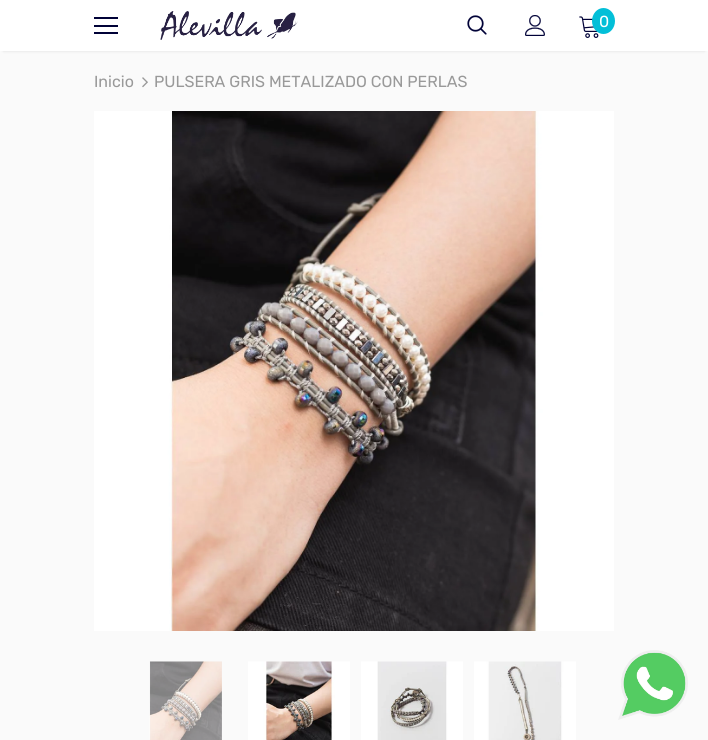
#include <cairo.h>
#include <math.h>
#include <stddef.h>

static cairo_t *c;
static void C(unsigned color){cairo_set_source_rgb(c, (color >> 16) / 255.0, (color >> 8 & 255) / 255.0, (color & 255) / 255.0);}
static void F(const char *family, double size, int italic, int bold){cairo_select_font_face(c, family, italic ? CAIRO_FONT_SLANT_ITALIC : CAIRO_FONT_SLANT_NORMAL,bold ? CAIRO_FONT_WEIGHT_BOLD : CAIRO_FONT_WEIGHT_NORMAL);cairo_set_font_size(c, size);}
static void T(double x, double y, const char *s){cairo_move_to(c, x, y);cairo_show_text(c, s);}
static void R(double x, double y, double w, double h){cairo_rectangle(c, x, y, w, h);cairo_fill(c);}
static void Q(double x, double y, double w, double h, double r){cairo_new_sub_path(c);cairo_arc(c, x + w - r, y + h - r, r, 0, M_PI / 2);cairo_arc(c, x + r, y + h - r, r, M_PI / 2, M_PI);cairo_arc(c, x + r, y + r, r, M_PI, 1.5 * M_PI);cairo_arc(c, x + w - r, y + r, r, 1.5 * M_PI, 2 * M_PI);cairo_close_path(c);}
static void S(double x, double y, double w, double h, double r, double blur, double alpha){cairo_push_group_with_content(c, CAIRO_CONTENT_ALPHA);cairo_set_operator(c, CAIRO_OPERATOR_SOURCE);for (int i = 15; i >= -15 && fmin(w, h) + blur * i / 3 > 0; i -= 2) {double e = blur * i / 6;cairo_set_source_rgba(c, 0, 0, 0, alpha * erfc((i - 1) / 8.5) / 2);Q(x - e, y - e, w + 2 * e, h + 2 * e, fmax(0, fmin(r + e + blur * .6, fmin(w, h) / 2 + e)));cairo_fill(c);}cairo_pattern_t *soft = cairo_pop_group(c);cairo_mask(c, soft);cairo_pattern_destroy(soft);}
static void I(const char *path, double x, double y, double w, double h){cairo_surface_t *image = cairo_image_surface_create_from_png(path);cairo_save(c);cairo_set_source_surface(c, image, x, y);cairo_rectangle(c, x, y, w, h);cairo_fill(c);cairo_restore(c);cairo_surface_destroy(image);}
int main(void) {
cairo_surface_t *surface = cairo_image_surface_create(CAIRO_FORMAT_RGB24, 708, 740);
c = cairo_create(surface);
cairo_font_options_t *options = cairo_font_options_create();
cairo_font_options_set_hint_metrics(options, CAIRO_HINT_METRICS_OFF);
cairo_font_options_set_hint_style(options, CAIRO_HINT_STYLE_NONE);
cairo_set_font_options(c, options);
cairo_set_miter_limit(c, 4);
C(0xfafafa);
cairo_paint(c);
C(0x000000);
S(3,6,702,45,0,1.5,.12);
C(0xffffff);
R(0,0,708,51);
C(0x000137);
R(94,17,24,2);
R(94,25,24,2);
R(94,32,24,2);
I("1.png",160,11,138,29);
I("2.png",467,15,20,20);
I("3.png",525,15,20,21);
I("4.png",579,16,20,22);
C(0x03bfd8);
cairo_new_path(c);
cairo_move_to(c,603.5,8);
cairo_curve_to(c,610,8,615,14,615,21);
cairo_curve_to(c,615,28,610,34,603.5,34);
cairo_curve_to(c,597,34,592,28,592,21);
cairo_curve_to(c,592,14,597,8,603.5,8);
cairo_close_path(c);
cairo_fill(c);
F("Rubik",16,0,0);
C(0xffffff);
T(599,27,"0");
C(0x999999);
T(94,87,"Inicio");
I("5.png",142,77,6,11);
T(154,87,"PULSERA GRIS METALIZADO CON PERLAS");
I("6.png",94,111,520,520);
I("7.png",149,661,73,79);
I("8.png",248,661,102,79);
I("9.png",361,661,102,79);
I("10.png",474,661,102,79);
I("11.png",618,650,70,70);
cairo_surface_write_to_png(surface, "o.png");
cairo_font_options_destroy(options);
cairo_destroy(c);
cairo_surface_destroy(surface);
return 0;
}
